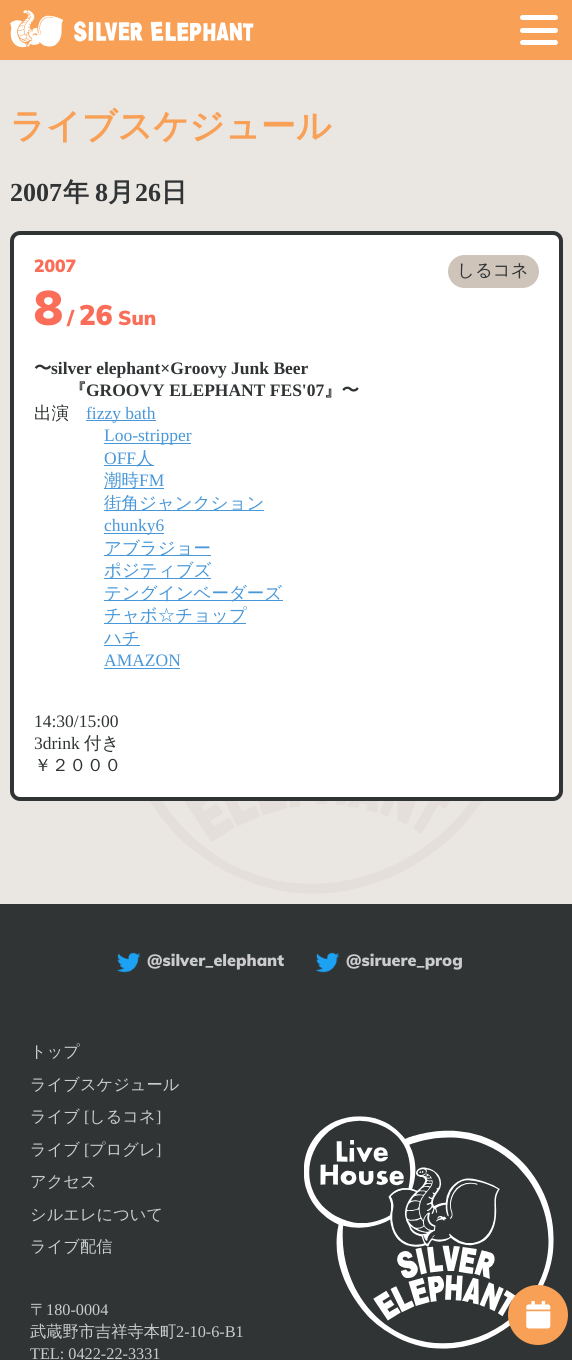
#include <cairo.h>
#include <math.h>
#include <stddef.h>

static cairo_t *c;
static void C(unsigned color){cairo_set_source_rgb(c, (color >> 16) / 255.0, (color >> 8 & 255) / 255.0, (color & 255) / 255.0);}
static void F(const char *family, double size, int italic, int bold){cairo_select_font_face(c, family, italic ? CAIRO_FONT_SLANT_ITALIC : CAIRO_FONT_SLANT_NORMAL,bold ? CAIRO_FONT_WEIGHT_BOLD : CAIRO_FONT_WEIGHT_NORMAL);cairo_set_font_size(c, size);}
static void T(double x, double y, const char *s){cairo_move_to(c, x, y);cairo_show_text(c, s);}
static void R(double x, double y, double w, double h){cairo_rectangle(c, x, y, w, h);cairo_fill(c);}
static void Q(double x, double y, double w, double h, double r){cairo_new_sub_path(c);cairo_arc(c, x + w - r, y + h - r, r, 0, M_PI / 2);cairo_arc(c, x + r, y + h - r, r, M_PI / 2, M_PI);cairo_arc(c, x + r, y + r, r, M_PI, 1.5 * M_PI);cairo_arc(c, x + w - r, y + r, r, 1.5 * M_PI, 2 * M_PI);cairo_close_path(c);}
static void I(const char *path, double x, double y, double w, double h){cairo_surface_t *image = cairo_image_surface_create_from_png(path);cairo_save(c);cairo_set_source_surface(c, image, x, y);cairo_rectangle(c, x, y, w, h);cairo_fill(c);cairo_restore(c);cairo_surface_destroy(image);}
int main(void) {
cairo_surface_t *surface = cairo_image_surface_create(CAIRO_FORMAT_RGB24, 572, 1360);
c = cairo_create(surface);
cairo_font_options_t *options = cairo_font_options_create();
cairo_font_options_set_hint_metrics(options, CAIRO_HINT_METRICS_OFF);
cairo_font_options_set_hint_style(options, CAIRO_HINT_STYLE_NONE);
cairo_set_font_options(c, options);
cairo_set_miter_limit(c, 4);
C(0xeae6e2);
cairo_paint(c);
I("1.png",149,801,333,93);
C(0xf8a055);
R(0,0,572,60);
I("2.png",10,10,244,38);
C(0xffffff);
Q(520,15,38,5,2.5);
cairo_fill(c);
Q(520,28,38,5,2.5);
cairo_fill(c);
Q(520,40,38,5,2.5);
cairo_fill(c);
F("WenQuanYi Zen Hei",35,0,1);
C(0xf8a055);
T(10,138,"ライブスケジュール");
F("Liberation Serif",26,0,1);
C(0x303435);
T(10,201,"2007");
F("WenQuanYi Zen Hei",26,0,1);
T(63,201,"年");
F("Liberation Serif",26,0,1);
T(95,201,"8");
F("WenQuanYi Zen Hei",26,0,1);
T(108,201,"月");
F("Liberation Serif",26,0,1);
T(135,201,"26");
F("WenQuanYi Zen Hei",26,0,1);
T(161,201,"日");
C(0xffffff);
Q(12,233,549,566,8);
cairo_fill_preserve(c);
C(0x303435);
cairo_set_line_width(c,4);
cairo_stroke(c);
F("Muli Black",17.5,0,0);
C(0xfa6e59);
T(34,272,"2007");
F("Muli Black",48,0,0);
T(34,325,"8");
F("Muli Black",20,0,0);
T(67,325,"/");
F("Muli Black",28,0,0);
T(79,325,"26");
F("Muli Black",20,0,0);
T(118,325,"Sun");
C(0xcec4ba);
Q(448,255,91,33,16.5);
cairo_fill(c);
F("WenQuanYi Zen Hei Medium",17.5,0,0);
C(0x303435);
T(457,276,"しるコネ");
F("WenQuanYi Zen Hei",17.5,0,1);
T(34,374,"〜");
F("Liberation Serif",17.5,0,1);
T(51,374,"silver elephant×Groovy Junk Beer");
F("WenQuanYi Zen Hei",17.5,0,1);
T(69,396,"『");
F("Liberation Serif",17.5,0,1);
T(86,396,"GROOVY ELEPHANT FES'07");
F("WenQuanYi Zen Hei",17.5,0,1);
T(324,396,"』〜");
F("WenQuanYi Zen Hei Medium",17.5,0,0);
T(34,419,"出演");
C(0x4897d8);
R(86,420,70,1);
F("Liberation Serif",17.5,0,0);
T(86,419,"fizzy bath");
R(104,443,87,1);
T(104,441,"Loo-stripper");
T(104,464,"OFF");
R(104,465,50,1);
F("WenQuanYi Zen Hei Medium",17.5,0,0);
T(136,464,"人");
R(104,488,60,1);
T(104,486,"潮時");
F("Liberation Serif",17.5,0,0);
T(139,486,"FM");
R(104,510,160,1);
F("WenQuanYi Zen Hei Medium",17.5,0,0);
T(104,509,"街角ジャンクション");
R(104,533,60,1);
F("Liberation Serif",17.5,0,0);
T(104,531,"chunky6");
R(104,555,107,1);
F("WenQuanYi Zen Hei Medium",17.5,0,0);
T(104,554,"アブラジョー");
R(104,578,107,1);
T(104,576,"ポジティブズ");
R(104,600,179,1);
T(104,599,"テングインベーダーズ");
R(104,623,142,1);
T(104,621,"チャボ☆チョップ");
R(104,645,36,1);
T(104,644,"ハチ");
F("Liberation Serif",17.5,0,0);
T(104,666,"AMAZON");
R(104,668,76,1);
C(0x303435);
T(34,727,"14:30/15:00");
T(34,749,"3drink");
F("WenQuanYi Zen Hei Medium",17.5,0,0);
T(84,749,"付き");
T(34,771,"￥２０００");
R(0,904,572,456);
I("6.png",304,1116,250,233);
C(0xf8a055);
cairo_arc(c,538,1315,30,0,2 * M_PI);
cairo_fill(c);
I("3.png",526,1300,25,29);
I("4.png",117,952,24,21);
F("Muli Black",16.25,0,0);
C(0xcccccc);
T(147,966,"@silver_elephant");
I("5.png",315,952,25,21);
T(346,966,"@siruere_prog");
F("WenQuanYi Zen Hei Medium",16.25,0,0);
T(30,1057,"トップ");
T(30,1090,"ライブスケジュール");
T(30,1122,"ライブ");
F("Liberation Serif",16.25,0,0);
T(84,1122,"[");
F("WenQuanYi Zen Hei Medium",16.25,0,0);
T(89,1122,"しるコネ");
F("Liberation Serif",16.25,0,0);
T(156,1122,"]");
F("WenQuanYi Zen Hei Medium",16.25,0,0);
T(30,1155,"ライブ");
F("Liberation Serif",16.25,0,0);
T(84,1155,"[");
F("WenQuanYi Zen Hei Medium",16.25,0,0);
T(89,1155,"プログレ");
F("Liberation Serif",16.25,0,0);
T(156,1155,"]");
F("WenQuanYi Zen Hei Medium",16.25,0,0);
T(30,1187,"アクセス");
T(30,1220,"シルエレについて");
T(30,1252,"ライブ配信");
T(30,1315,"〒");
F("Liberation Serif",16.25,0,0);
T(46,1315,"180-0004");
F("WenQuanYi Zen Hei Medium",16.25,0,0);
T(30,1337,"武蔵野市吉祥寺本町");
F("Liberation Serif",16.25,0,0);
T(176,1337,"2-10-6-B1");
T(30,1359,"TEL: 0422-22-3331");
cairo_surface_write_to_png(surface, "o.png");
cairo_font_options_destroy(options);
cairo_destroy(c);
cairo_surface_destroy(surface);
return 0;
}
